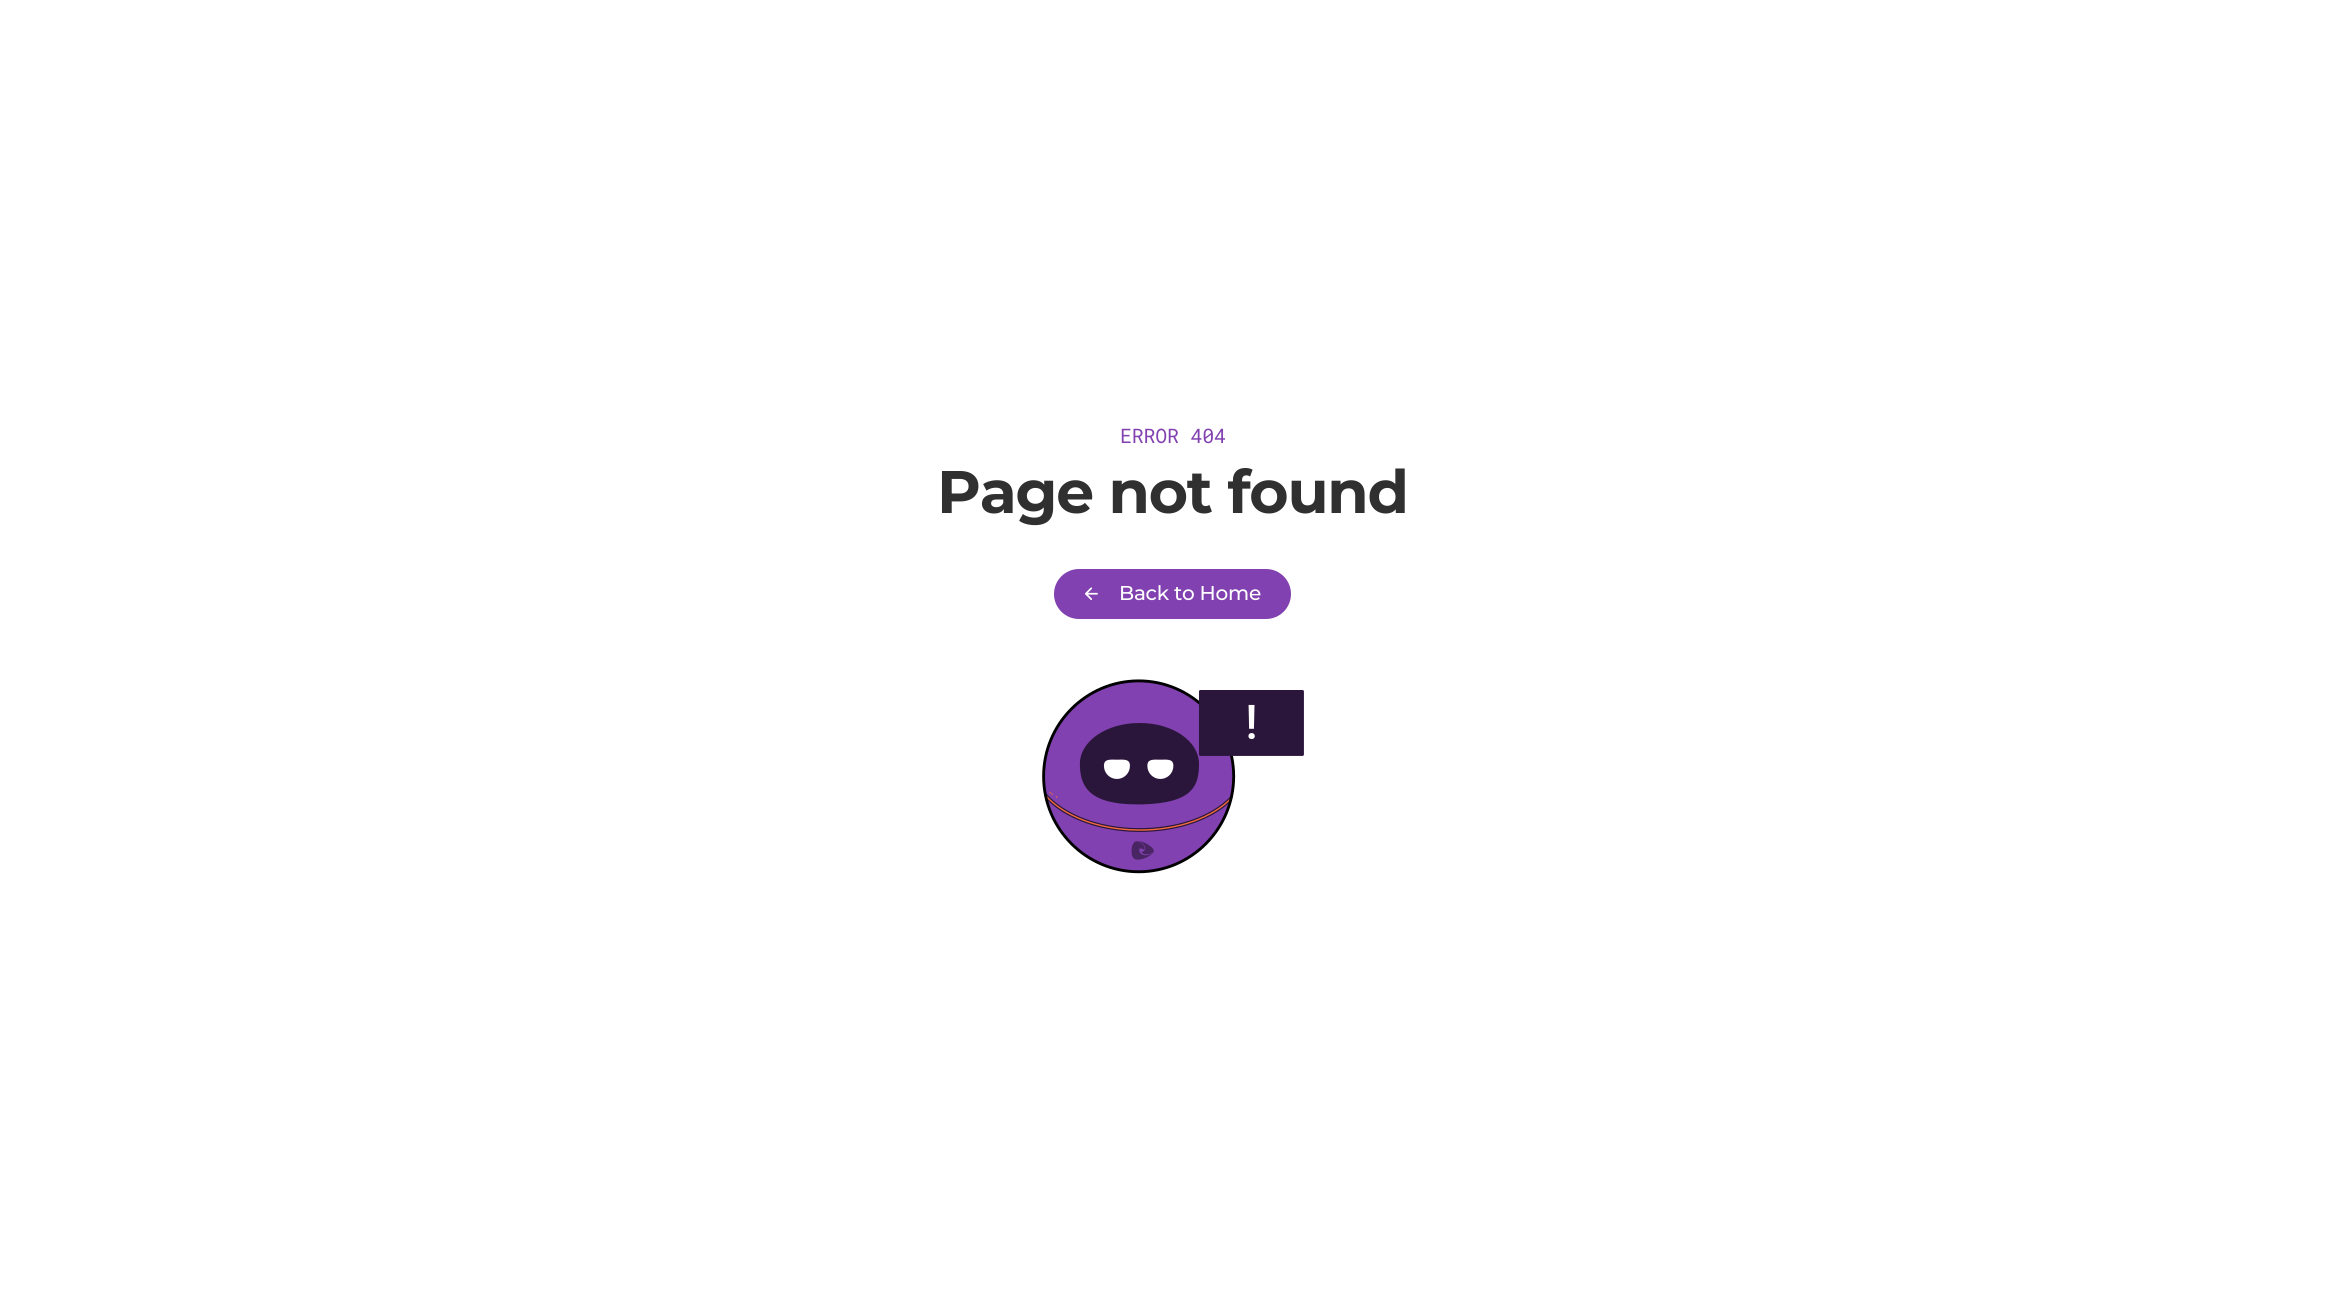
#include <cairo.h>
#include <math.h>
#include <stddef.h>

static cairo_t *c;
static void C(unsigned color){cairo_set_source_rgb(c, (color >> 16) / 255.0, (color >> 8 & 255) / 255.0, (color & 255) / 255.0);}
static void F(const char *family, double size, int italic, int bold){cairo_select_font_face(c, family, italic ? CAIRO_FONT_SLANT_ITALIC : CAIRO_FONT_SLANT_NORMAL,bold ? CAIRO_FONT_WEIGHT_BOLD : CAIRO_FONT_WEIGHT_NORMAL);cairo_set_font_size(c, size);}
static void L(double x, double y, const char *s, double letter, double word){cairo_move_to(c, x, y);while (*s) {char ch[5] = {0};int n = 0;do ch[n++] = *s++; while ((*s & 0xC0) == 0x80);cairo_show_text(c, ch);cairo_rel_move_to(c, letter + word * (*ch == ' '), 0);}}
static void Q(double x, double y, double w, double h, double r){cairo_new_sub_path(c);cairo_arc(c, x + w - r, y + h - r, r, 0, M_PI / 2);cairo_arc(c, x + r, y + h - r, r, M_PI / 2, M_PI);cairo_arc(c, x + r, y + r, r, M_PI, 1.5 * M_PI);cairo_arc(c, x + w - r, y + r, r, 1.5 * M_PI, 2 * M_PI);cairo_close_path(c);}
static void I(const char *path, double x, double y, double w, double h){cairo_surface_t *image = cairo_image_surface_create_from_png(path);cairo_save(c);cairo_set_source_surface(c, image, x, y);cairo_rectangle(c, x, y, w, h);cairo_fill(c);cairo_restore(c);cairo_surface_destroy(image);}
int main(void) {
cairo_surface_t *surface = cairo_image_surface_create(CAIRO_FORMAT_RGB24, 2346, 1297);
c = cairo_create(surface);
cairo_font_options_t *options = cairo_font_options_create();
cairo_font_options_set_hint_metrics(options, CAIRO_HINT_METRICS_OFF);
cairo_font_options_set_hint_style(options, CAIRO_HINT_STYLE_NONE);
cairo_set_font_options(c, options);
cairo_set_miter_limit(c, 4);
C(0xffffff);
cairo_paint(c);
F("Roboto Mono",20,0,0);
C(0x8241b0);
L(1120,443,"ERROR 404",-.25,0);
F("Montserrat",60,0,1);
C(0x303030);
L(937,513,"Page not found",-1.25,0);
C(0x8241b0);
Q(1054,569,237,50,25);
cairo_fill(c);
I("1.png",1085,587,13,13);
F("Montserrat Medium",20,0,0);
C(0xffffff);
L(1119,600,"Back to Home",-.25,0);
I("2.png",1042,679,262,195);
cairo_surface_write_to_png(surface, "o.png");
cairo_font_options_destroy(options);
cairo_destroy(c);
cairo_surface_destroy(surface);
return 0;
}
